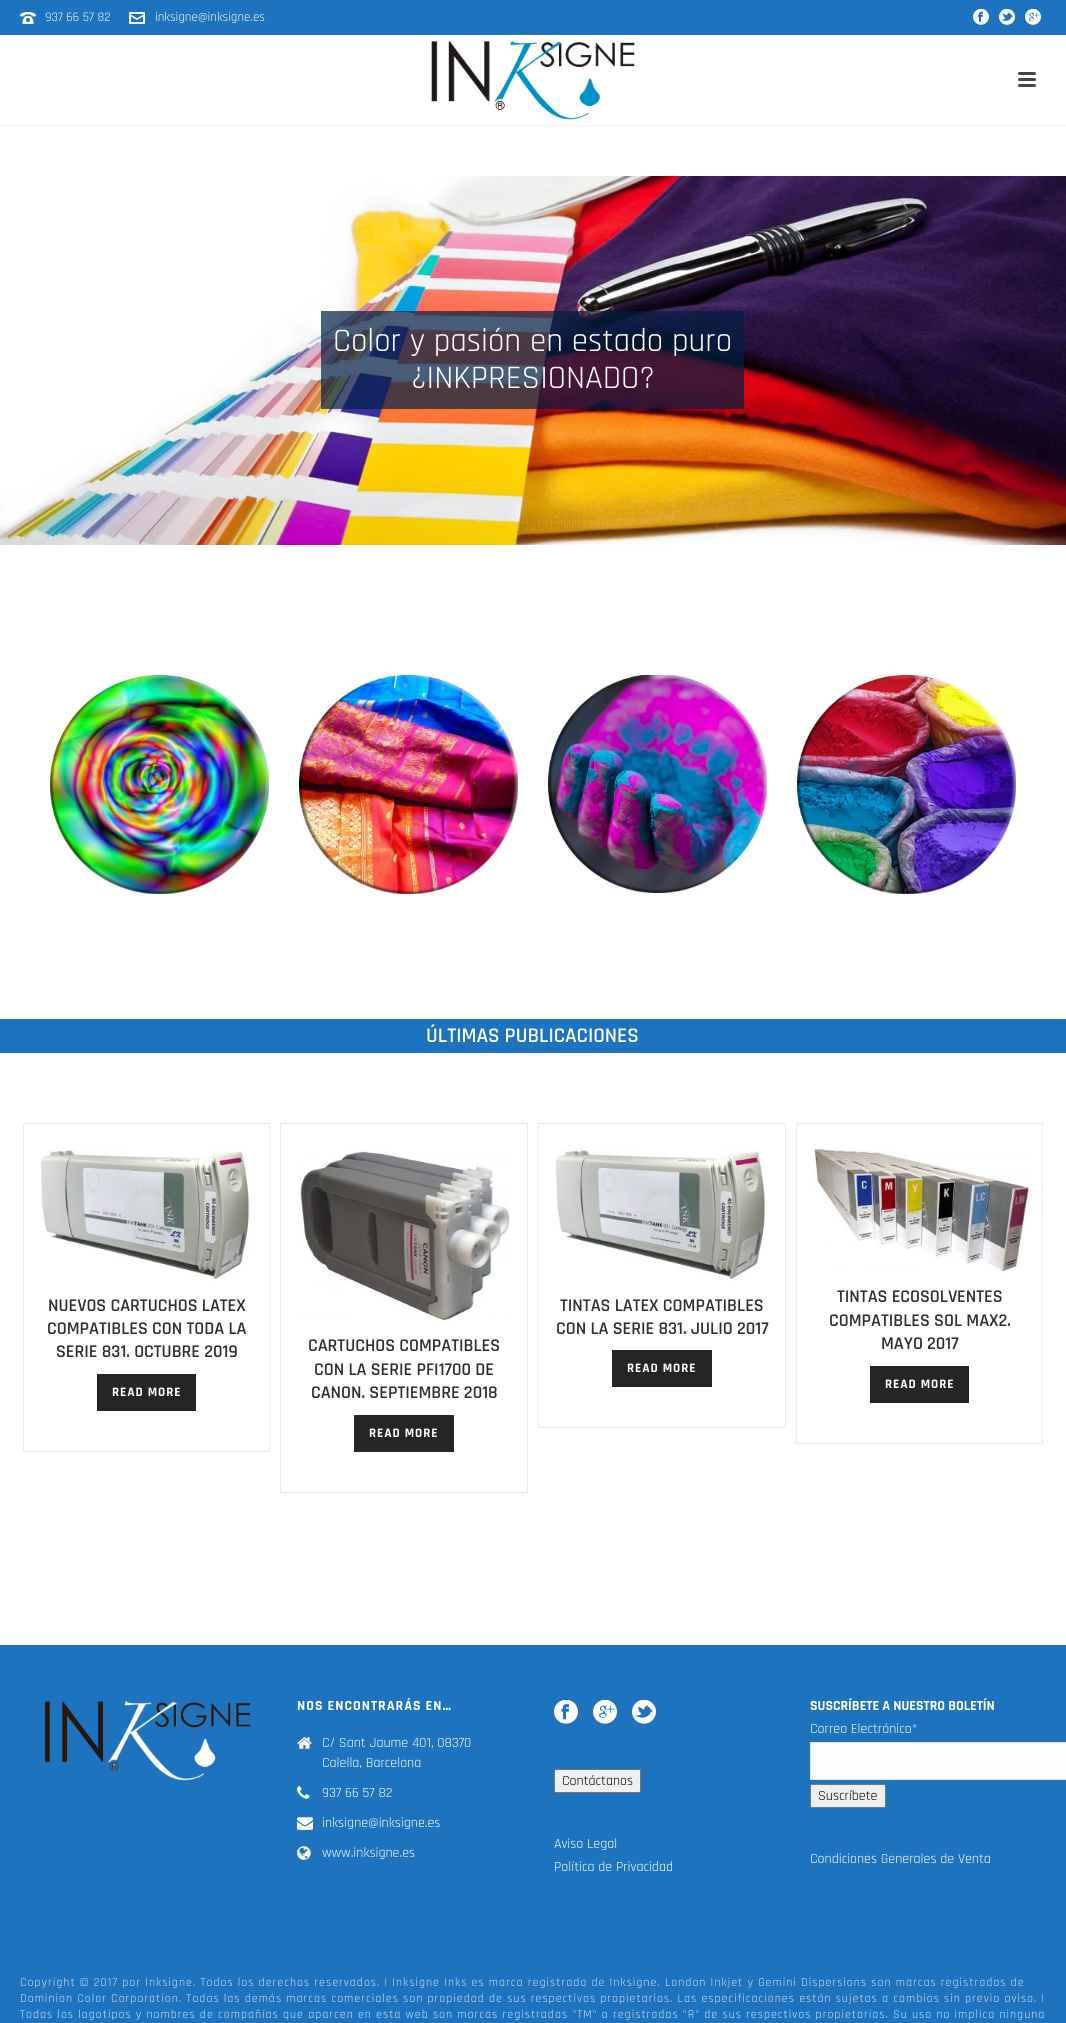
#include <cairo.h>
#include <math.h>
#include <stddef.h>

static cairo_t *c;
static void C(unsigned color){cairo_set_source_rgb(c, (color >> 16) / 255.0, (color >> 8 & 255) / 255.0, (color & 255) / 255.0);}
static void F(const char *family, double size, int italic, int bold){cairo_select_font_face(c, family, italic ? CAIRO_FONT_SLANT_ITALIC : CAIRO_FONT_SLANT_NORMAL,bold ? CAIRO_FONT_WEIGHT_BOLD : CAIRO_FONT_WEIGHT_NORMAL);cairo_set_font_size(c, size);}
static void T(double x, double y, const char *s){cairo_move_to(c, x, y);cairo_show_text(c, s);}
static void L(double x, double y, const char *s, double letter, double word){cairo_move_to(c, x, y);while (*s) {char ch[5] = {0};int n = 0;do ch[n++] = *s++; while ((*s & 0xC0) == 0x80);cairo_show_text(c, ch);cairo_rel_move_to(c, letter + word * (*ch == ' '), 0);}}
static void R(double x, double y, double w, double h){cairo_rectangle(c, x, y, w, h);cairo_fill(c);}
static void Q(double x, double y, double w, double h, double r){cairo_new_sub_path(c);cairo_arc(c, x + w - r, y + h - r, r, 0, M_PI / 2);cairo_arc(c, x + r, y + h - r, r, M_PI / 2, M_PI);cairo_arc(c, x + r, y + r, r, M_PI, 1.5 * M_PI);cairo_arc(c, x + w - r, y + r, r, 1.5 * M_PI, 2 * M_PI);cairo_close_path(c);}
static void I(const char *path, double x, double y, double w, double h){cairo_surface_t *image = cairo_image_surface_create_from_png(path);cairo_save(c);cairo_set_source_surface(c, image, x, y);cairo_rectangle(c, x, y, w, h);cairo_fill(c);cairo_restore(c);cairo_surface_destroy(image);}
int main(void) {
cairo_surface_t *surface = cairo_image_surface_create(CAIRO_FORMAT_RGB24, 1066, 2023);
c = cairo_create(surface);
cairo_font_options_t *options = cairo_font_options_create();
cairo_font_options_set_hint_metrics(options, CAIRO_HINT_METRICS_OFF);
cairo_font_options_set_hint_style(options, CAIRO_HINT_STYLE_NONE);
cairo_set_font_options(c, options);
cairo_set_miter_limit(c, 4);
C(0xffffff);
cairo_paint(c);
C(0x1e73be);
R(0,0,1066,35);
I("1.png",20,12,16,12);
F("Rajdhani",13,0,0);
C(0xffffff);
T(45,21,"937 66 57 82");
I("2.png",129,12,16,12);
T(155,21,"inksigne@inksigne.es");
I("3.png",973,9,16,16);
I("4.png",999,9,16,16);
I("5.png",1025,9,16,16);
C(0xededed);
R(0,125,1066,1);
I("6.png",431,40,204,80);
C(0x444444);
Q(1018,72,18,3,1.5);
cairo_fill(c);
Q(1018,78,18,3,1.5);
cairo_fill(c);
Q(1018,84,18,3,1.5);
cairo_fill(c);
I("7.png",0,176,1066,369);
cairo_set_source_rgba(c,0,0.118,0.267,0.7);
R(321,311,423,98);
F("Rajdhani",33,0,0);
C(0xffffff);
T(333,351,"Color y pasión en estado puro");
T(411,388,"¿INKPRESIONADO?");
I("8.png",50,675,219,219);
I("9.png",299,675,219,219);
I("10.png",548,675,219,218);
I("11.png",797,675,219,219);
C(0x1e73be);
R(0,1019,1066,34);
F("Rajdhani SemiBold",21,0,0);
C(0xffffff);
T(426,1042,"ÚLTIMAS PUBLICACIONES");
cairo_rectangle(c,23.5,1123.5,246,328);
C(0xebebeb);
cairo_set_line_width(c,1);
cairo_stroke(c);
I("12.png",40,1150,210,131);
F("Rajdhani SemiBold",18,0,0);
C(0x2e2e2e);
T(48,1311,"NUEVOS CARTUCHOS LATEX");
T(47,1334,"COMPATIBLES CON TODA LA");
T(56,1357,"SERIE 831. OCTUBRE 2019");
C(0x252525);
R(97,1374,99,37);
F("Rajdhani",13,0,1);
C(0xffffff);
L(112,1396,"READ MORE",1,0);
cairo_rectangle(c,280.5,1123.5,247,369);
C(0xebebeb);
cairo_stroke(c);
I("13.png",299,1151,211,173);
F("Rajdhani SemiBold",18,0,0);
C(0x2e2e2e);
T(308,1351,"CARTUCHOS COMPATIBLES");
T(314,1375,"CON LA SERIE PFI1700 DE");
T(311,1398,"CANON. SEPTIEMBRE 2018");
C(0x252525);
R(354,1415,100,37);
F("Rajdhani",13,0,1);
C(0xffffff);
L(369,1437,"READ MORE",1,0);
cairo_rectangle(c,538.5,1123.5,247,304);
C(0xebebeb);
cairo_stroke(c);
I("14.png",555,1150,211,131);
F("Rajdhani SemiBold",18,0,0);
C(0x2e2e2e);
T(560,1311,"TINTAS LATEX COMPATIBLES");
T(556,1334,"CON LA SERIE 831. JULIO 2017");
C(0x252525);
R(612,1350,100,37);
F("Rajdhani",13,0,1);
C(0xffffff);
L(627,1372,"READ MORE",1,0);
cairo_rectangle(c,796.5,1123.5,246,320);
C(0xebebeb);
cairo_stroke(c);
I("15.png",813,1144,219,131);
F("Rajdhani SemiBold",18,0,0);
C(0x2e2e2e);
T(837,1302,"TINTAS ECOSOLVENTES");
T(829,1326,"COMPATIBLES SOL MAX2.");
T(881,1349,"MAYO 2017");
C(0x252525);
R(870,1366,99,37);
F("Rajdhani",13,0,1);
C(0xffffff);
L(885,1388,"READ MORE",1,0);
C(0x1e73be);
R(0,1645,1066,378);
I("16.png",44,1700,207,81);
F("Rajdhani",14,0,1);
C(0xffffff);
L(297,1710,"NOS ENCONTRARÁS EN…",1,0);
I("17.png",297,1737,15,12);
F("Rajdhani",14,0,0);
T(322,1747,"C/ Sant Jaume 401, 08370");
T(322,1767,"Calella, Barcelona");
I("18.png",297,1786,13,13);
T(322,1797,"937 66 57 82");
I("19.png",297,1817,16,13);
T(322,1827,"inksigne@inksigne.es");
I("20.png",297,1846,14,14);
T(322,1857,"www.inksigne.es");
F("Rajdhani",14,0,1);
T(810,1710,"SUSCRÍBETE A NUESTRO BOLETÍN");
F("Rajdhani",14,0,0);
T(810,1733,"Correo Electrónico*");
C(0xfdfdfd);
cairo_rectangle(c,810.5,1742.5,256,37);
cairo_fill_preserve(c);
C(0xe3e3e3);
cairo_stroke(c);
C(0xefefef);
Q(810.5,1784.5,75,23,1.5);
cairo_fill_preserve(c);
C(0x767676);
cairo_stroke(c);
C(0x000000);
T(818,1800,"Suscríbete");
C(0xffffff);
T(810,1863,"Condiciones Generales de Venta");
I("21.png",554,1700,24,24);
I("22.png",593,1700,24,24);
I("23.png",632,1700,24,24);
C(0xefefef);
Q(554.5,1769.5,86,23,1.5);
cairo_fill_preserve(c);
C(0x767676);
cairo_stroke(c);
C(0x000000);
T(562,1785,"Contáctanos");
C(0xffffff);
T(554,1848,"Aviso Legal");
T(554,1871,"Política de Privacidad");
F("Rajdhani",12,0,0);
C(0xd2e3f2);
L(20,1986,"Copyright © 2017 por Inksigne. Todos los derechos reservados. | Inksigne Inks es marca registrada de Inksigne. London Inkjet y Gemini Dispersions son marcas registradas de",1,0);
L(20,2002,"Dominion Color Corporation. Todas las demás marcas comerciales son propiedad de sus respectivos propietarios. Las especificaciones están sujetas a cambios sin previo aviso. |",1,0);
L(20,2018,"Todos los logotipos y nombres de compañías que aparcen en esta web son marcas registradas \"TM\" o registradas \"R\" de sus respectivos propietarios. Su uso no implica ninguna",1,0);
cairo_surface_write_to_png(surface, "o.png");
cairo_font_options_destroy(options);
cairo_destroy(c);
cairo_surface_destroy(surface);
return 0;
}
